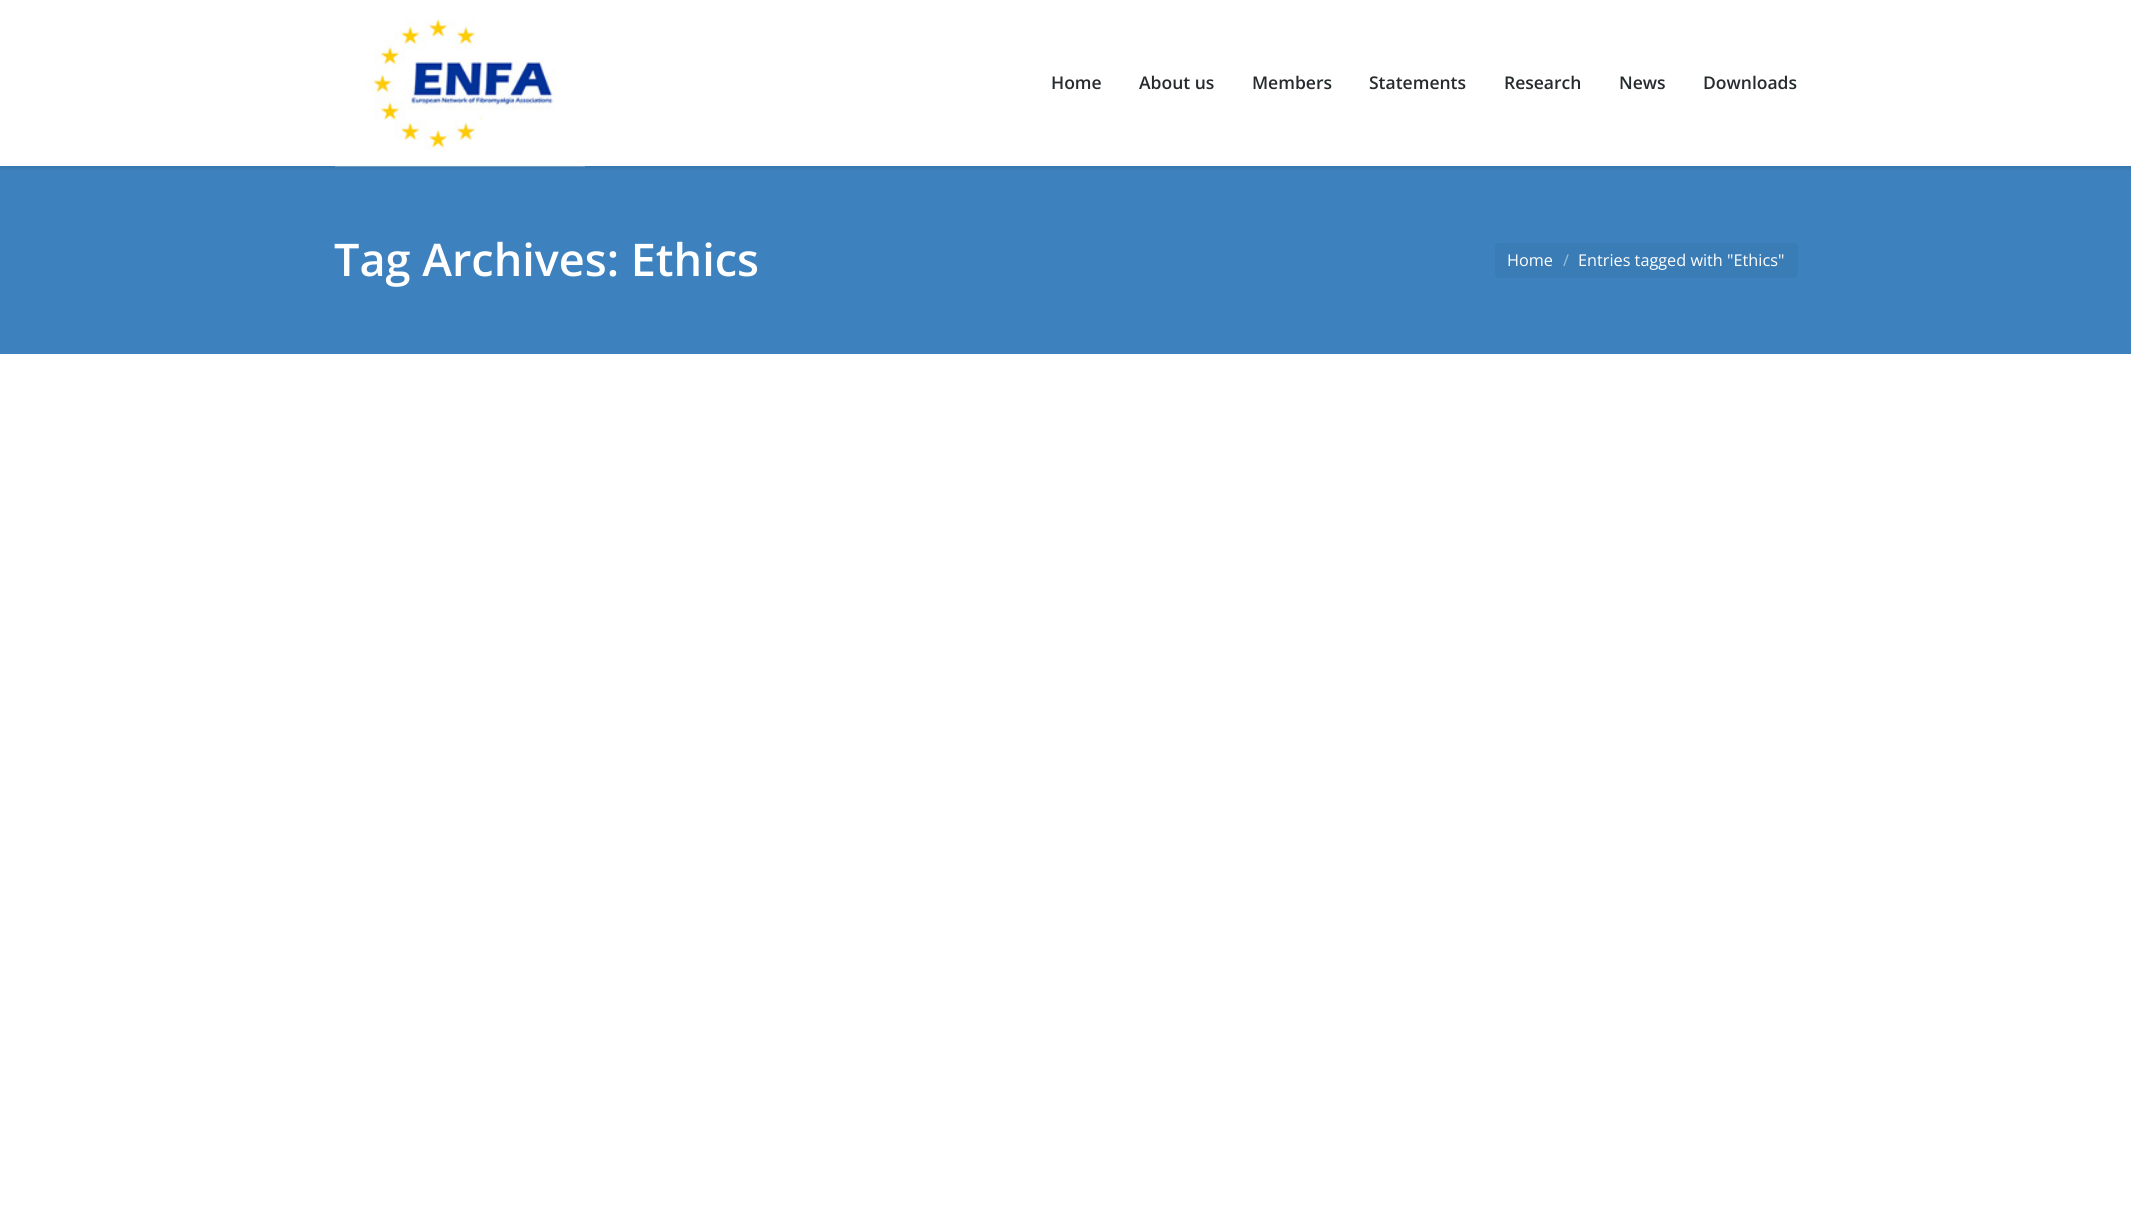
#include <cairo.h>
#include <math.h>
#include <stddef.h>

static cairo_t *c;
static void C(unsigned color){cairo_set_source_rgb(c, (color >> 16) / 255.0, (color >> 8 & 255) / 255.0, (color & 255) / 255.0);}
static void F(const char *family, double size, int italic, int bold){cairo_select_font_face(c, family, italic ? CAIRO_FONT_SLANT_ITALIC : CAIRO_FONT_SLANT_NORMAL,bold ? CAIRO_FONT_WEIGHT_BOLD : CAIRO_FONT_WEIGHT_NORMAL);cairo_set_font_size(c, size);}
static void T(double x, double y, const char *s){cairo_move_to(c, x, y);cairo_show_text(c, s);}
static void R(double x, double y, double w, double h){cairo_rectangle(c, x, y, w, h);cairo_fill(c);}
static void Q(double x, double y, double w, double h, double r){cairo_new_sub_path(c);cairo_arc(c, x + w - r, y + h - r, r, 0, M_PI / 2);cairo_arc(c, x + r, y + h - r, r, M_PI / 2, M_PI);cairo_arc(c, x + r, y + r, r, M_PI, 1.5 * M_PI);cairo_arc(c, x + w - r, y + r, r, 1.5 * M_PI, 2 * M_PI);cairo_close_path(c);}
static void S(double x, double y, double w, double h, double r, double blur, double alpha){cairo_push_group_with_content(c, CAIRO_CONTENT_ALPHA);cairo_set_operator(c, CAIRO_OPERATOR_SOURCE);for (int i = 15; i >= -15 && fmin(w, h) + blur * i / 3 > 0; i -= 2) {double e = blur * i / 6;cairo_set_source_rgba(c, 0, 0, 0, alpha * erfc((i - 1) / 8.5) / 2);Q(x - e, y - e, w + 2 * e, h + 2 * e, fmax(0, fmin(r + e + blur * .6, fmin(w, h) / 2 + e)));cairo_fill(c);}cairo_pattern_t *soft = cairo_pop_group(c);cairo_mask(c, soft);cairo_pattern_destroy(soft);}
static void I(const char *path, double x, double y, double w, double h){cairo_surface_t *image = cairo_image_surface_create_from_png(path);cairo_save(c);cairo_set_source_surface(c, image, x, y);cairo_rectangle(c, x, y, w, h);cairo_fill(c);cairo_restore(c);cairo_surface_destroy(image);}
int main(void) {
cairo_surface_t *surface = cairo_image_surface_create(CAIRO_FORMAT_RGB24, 2131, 1210);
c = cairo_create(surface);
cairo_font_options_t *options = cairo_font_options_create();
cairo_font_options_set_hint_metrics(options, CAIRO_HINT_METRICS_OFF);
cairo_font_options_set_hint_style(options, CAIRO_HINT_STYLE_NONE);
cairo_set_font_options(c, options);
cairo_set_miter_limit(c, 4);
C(0xffffff);
cairo_paint(c);
C(0x3d82bf);
R(0,166,2131,188);
cairo_save(c);
cairo_rectangle(c,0,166,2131,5);
cairo_clip(c);
C(0x000000);
S(0,0,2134,169,0,2.5,.1);
cairo_restore(c);
I("1.png",335,19,250,148);
F("Open Sans SemiBold",17.5,0,0);
C(0x262b2e);
T(1051,89,"Home");
T(1139,89,"About us");
T(1252,89,"Members");
T(1369,89,"Statements");
T(1504,89,"Research");
T(1619,89,"News");
T(1703,89,"Downloads");
F("Open Sans SemiBold",45,0,0);
C(0xffffff);
T(334,276,"Tag Archives: Ethics");
C(0x3a7cb5);
Q(1495,243,303,35,4);
cairo_fill(c);
F("Open Sans",16.25,0,0);
C(0xffffff);
T(1507,266,"Home");
C(0x9dbeda);
T(1563,266,"/");
C(0xffffff);
T(1578,266,"Entries tagged with \"Ethics\"");
cairo_surface_write_to_png(surface, "o.png");
cairo_font_options_destroy(options);
cairo_destroy(c);
cairo_surface_destroy(surface);
return 0;
}
